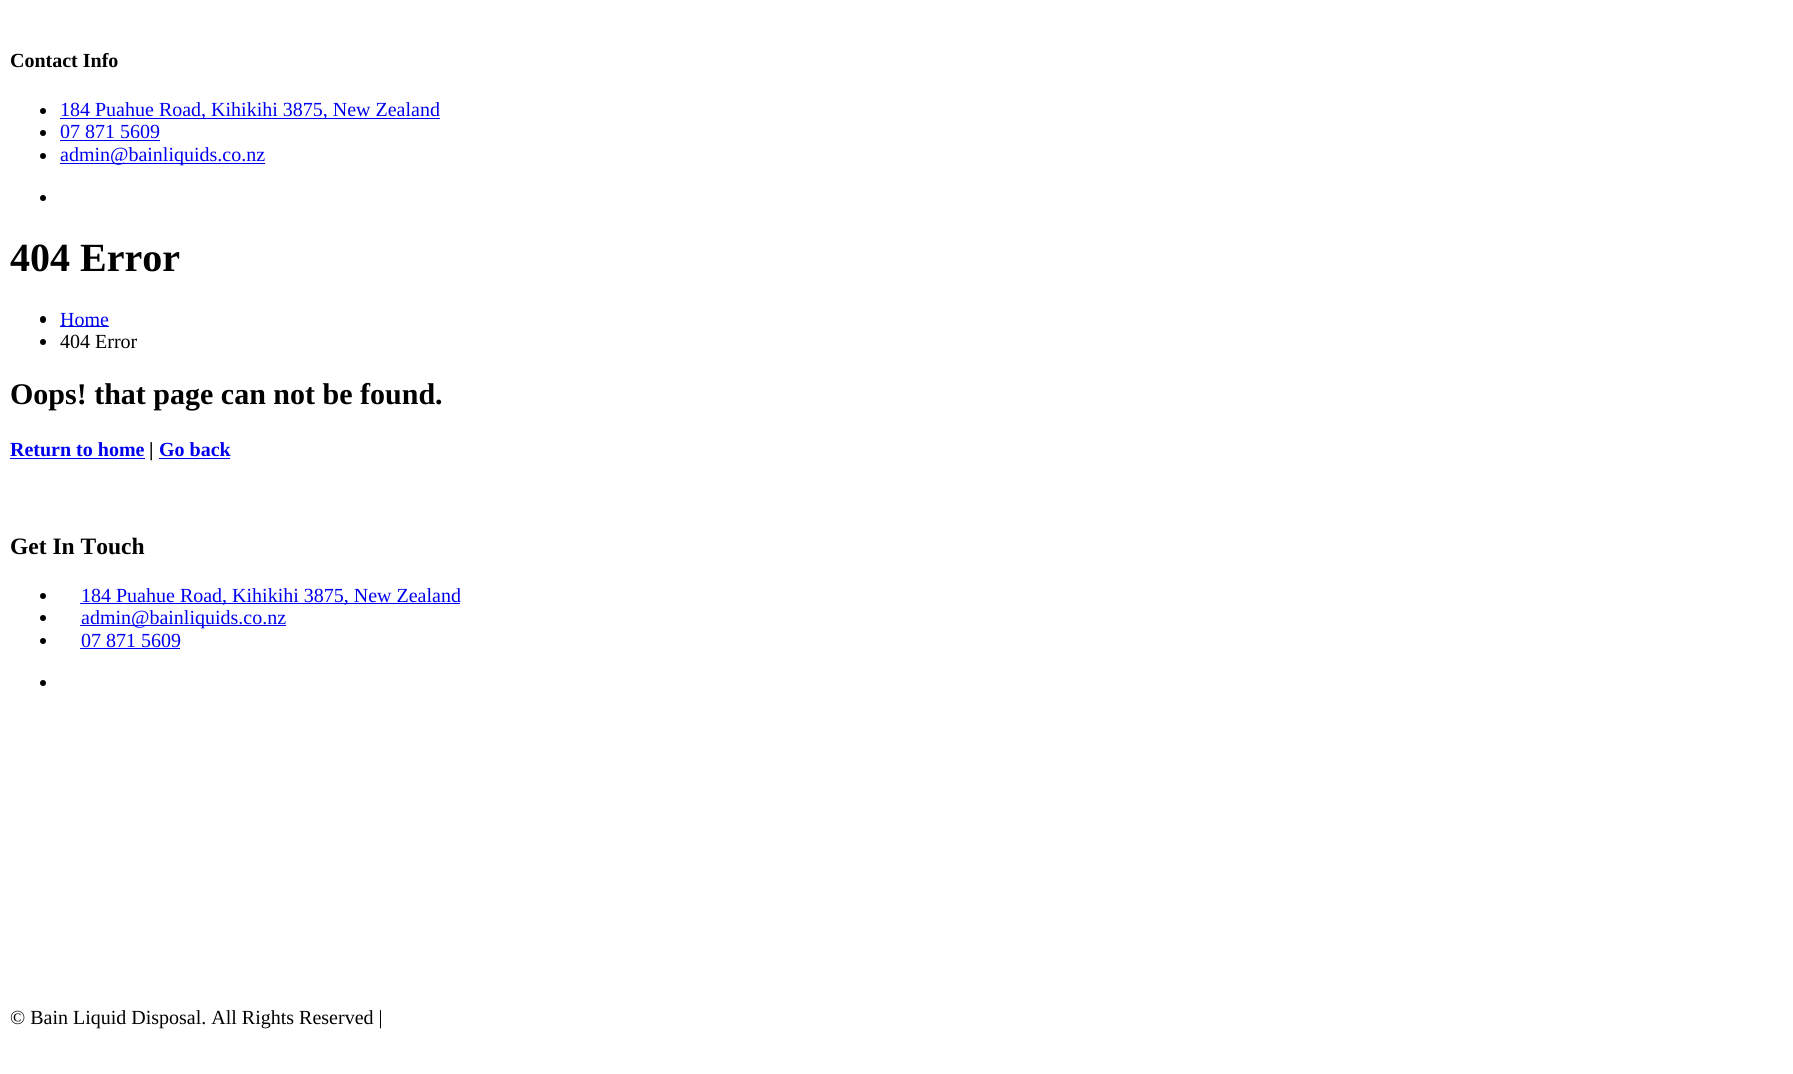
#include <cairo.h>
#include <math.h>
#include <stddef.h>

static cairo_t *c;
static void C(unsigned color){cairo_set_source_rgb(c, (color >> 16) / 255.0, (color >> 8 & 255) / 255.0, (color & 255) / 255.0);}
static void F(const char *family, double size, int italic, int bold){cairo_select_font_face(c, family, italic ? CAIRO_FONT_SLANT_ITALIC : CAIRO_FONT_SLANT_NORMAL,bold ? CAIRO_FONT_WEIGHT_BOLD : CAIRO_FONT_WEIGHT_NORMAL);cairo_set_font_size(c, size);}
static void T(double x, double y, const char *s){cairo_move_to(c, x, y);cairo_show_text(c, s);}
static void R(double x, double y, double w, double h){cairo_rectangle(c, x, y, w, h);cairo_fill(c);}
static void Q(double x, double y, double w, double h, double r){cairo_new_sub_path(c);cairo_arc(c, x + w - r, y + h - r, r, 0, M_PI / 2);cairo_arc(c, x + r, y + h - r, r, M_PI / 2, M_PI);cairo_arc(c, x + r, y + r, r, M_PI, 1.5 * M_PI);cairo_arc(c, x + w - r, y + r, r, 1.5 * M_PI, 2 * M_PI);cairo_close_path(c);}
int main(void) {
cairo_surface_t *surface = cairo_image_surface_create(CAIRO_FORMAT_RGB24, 1793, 1074);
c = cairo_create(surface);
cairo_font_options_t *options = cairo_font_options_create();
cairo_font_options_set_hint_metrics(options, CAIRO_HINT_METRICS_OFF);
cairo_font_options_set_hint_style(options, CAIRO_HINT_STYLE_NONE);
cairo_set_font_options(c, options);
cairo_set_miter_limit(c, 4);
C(0xffffff);
cairo_paint(c);
F("Liberation Serif",20,0,1);
C(0x000000);
T(10,67,"Contact Info");
cairo_new_path(c);
cairo_arc(c,43,111,3,0,2 * M_PI);
cairo_fill(c);
C(0x0000ee);
R(60,118,380,1);
F("Liberation Serif",20,0,0);
T(60,116,"184 Puahue Road, Kihikihi 3875, New Zealand");
C(0x000000);
cairo_new_path(c);
cairo_arc(c,43,133,3,0,2 * M_PI);
cairo_fill(c);
C(0x0000ee);
T(60,138,"07 871 5609");
R(60,140,100,1);
C(0x000000);
cairo_new_path(c);
cairo_arc(c,43,156,3,0,2 * M_PI);
cairo_fill(c);
C(0x0000ee);
R(60,163,205,1);
T(60,161,"admin@bainliquids.co.nz");
C(0x000000);
cairo_new_path(c);
cairo_arc(c,43,198,3,0,2 * M_PI);
cairo_fill(c);
F("Liberation Serif",40,0,1);
T(10,271,"404 Error");
Q(40,316,6,7,3);
cairo_fill(c);
C(0x0000ee);
R(60,326,49,1);
F("Liberation Serif",20,0,0);
T(60,326,"Home");
C(0x000000);
cairo_new_path(c);
cairo_arc(c,43,342,3,0,2 * M_PI);
cairo_fill(c);
T(60,348,"404 Error");
F("Liberation Serif",30,0,1);
T(10,404,"Oops! that page can not be found.");
F("Liberation Serif",20,0,1);
C(0x0000ee);
T(10,456,"Return to home");
R(10,458,135,1);
C(0x000000);
T(149,456,"|");
C(0x0000ee);
T(159,456,"Go back");
R(159,458,71,1);
F("Liberation Serif",23.5,0,1);
C(0x000000);
T(10,554,"Get In Touch");
cairo_new_path(c);
cairo_arc(c,43,596,3,0,2 * M_PI);
cairo_fill(c);
C(0x0000ee);
R(80,603,380,1);
F("Liberation Serif",20,0,0);
T(81,602,"184 Puahue Road, Kihikihi 3875, New Zealand");
C(0x000000);
cairo_new_path(c);
cairo_arc(c,43,618,3,0,2 * M_PI);
cairo_fill(c);
C(0x0000ee);
R(80,625,206,1);
T(81,624,"admin@bainliquids.co.nz");
C(0x000000);
cairo_new_path(c);
cairo_arc(c,43,641,3,0,2 * M_PI);
cairo_fill(c);
C(0x0000ee);
T(81,647,"07 871 5609");
R(80,648,100,1);
C(0x000000);
cairo_new_path(c);
cairo_arc(c,43,683,3,0,2 * M_PI);
cairo_fill(c);
T(10,1024,"© Bain Liquid Disposal. All Rights Reserved |");
cairo_surface_write_to_png(surface, "o.png");
cairo_font_options_destroy(options);
cairo_destroy(c);
cairo_surface_destroy(surface);
return 0;
}
